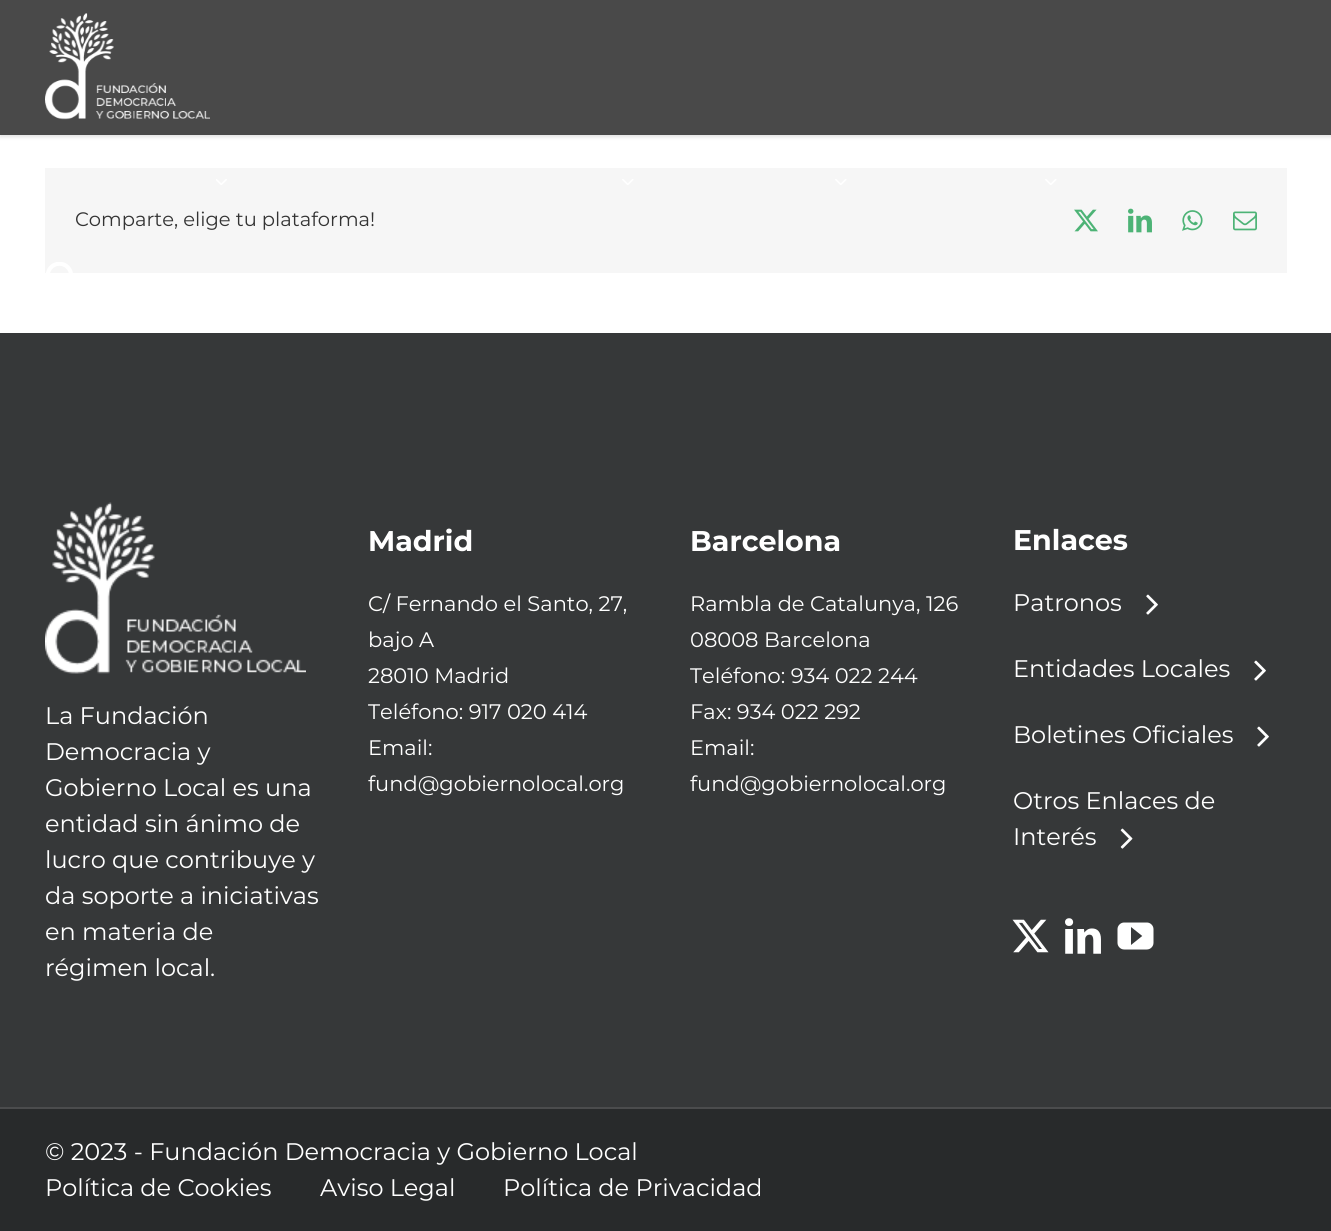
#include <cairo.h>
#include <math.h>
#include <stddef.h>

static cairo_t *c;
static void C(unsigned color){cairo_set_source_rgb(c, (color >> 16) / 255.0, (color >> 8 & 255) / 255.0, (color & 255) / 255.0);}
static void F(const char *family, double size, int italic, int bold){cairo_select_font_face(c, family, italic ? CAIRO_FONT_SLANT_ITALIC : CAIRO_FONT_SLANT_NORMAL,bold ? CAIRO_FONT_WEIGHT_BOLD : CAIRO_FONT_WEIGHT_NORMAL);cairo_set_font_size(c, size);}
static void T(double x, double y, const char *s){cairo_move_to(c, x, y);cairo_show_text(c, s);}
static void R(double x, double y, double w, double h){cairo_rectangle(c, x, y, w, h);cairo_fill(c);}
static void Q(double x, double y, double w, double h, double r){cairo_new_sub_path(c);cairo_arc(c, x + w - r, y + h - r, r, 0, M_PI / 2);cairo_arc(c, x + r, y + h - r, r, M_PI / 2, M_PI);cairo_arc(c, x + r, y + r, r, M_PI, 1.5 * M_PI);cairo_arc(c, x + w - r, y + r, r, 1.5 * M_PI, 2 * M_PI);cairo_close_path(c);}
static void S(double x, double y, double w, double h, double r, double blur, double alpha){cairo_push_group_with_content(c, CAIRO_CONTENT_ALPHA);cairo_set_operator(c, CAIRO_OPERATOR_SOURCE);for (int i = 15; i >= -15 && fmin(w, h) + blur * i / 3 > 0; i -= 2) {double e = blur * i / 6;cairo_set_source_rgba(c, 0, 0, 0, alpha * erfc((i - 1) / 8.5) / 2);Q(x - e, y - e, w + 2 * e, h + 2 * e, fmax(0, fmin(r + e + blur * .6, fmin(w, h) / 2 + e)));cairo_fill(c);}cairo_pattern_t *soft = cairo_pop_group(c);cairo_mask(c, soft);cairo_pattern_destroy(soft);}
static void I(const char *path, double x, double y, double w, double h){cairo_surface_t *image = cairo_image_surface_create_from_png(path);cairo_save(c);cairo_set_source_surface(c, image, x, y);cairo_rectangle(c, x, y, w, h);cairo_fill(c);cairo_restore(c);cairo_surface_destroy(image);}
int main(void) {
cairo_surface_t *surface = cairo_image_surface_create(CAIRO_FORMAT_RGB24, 1331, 1231);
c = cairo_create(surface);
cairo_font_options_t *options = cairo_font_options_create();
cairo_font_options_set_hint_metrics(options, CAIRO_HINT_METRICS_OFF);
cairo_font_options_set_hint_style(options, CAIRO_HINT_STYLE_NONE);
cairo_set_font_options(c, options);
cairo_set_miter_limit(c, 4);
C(0xffffff);
cairo_paint(c);
C(0x000000);
S(0,2,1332,135,0,2,.12);
C(0x494949);
R(0,0,1331,135);
I("1.png",45,13,165,107);
C(0xf6f6f6);
R(45,168,1242,105);
I("2.png",216,179,11,6);
I("3.png",622,179,12,6);
I("3.png",835,179,12,6);
I("3.png",1045,179,12,6);
I("4.png",46,262,27,11);
F("Montserrat",19.5,0,0);
C(0x333333);
T(75,226,"Comparte, elige tu plataforma!");
I("5.png",1074,209,24,23);
I("6.png",1128,208,24,25);
I("7.png",1182,210,21,21);
I("8.png",1233,211,24,20);
C(0x363839);
R(0,333,1331,774);
F("Montserrat",28.5,0,1);
C(0xffffff);
T(368,551,"Madrid");
F("Montserrat",21,0,0);
T(368,611,"C/ Fernando el Santo, 27,");
T(368,647,"bajo A");
T(368,683,"28010 Madrid");
T(368,719,"Teléfono: 917 020 414");
T(368,755,"Email:");
T(368,791,"fund@gobiernolocal.org");
F("Montserrat",28.5,0,1);
T(690,551,"Barcelona");
F("Montserrat",21,0,0);
T(690,611,"Rambla de Catalunya, 126");
T(690,647,"08008 Barcelona");
T(690,683,"Teléfono: 934 022 244");
T(690,719,"Fax: 934 022 292");
T(690,755,"Email:");
T(690,791,"fund@gobiernolocal.org");
F("Montserrat",28.5,0,1);
T(1013,550,"Enlaces");
F("Montserrat",24,0,0);
T(1013,611,"Patronos");
I("9.png",1146,594,12,21);
T(1013,677,"Entidades Locales");
I("9.png",1254,660,12,21);
T(1013,743,"Boletines Oficiales");
I("9.png",1257,726,12,21);
T(1013,809,"Otros Enlaces de");
T(1013,845,"Interés");
I("10.png",1120,828,13,21);
I("11.png",1012,919,37,34);
I("12.png",1065,918,36,36);
I("13.png",1117,922,37,28);
I("14.png",45,502,261,172);
T(45,724,"La Fundación");
T(45,760,"Democracia y");
T(45,796,"Gobierno Local es una");
T(45,832,"entidad sin ánimo de");
T(45,868,"lucro que contribuye y");
T(45,904,"da soporte a iniciativas");
T(45,940,"en materia de");
T(45,976,"régimen local.");
C(0x282a2b);
R(0,1109,1331,122);
C(0x4b4c4d);
R(0,1107,1331,2);
C(0xffffff);
T(45,1160,"© 2023 - Fundación Democracia y Gobierno Local");
T(45,1196,"Política de Cookies");
T(320,1196,"Aviso Legal");
T(503,1196,"Política de Privacidad");
cairo_surface_write_to_png(surface, "o.png");
cairo_font_options_destroy(options);
cairo_destroy(c);
cairo_surface_destroy(surface);
return 0;
}
